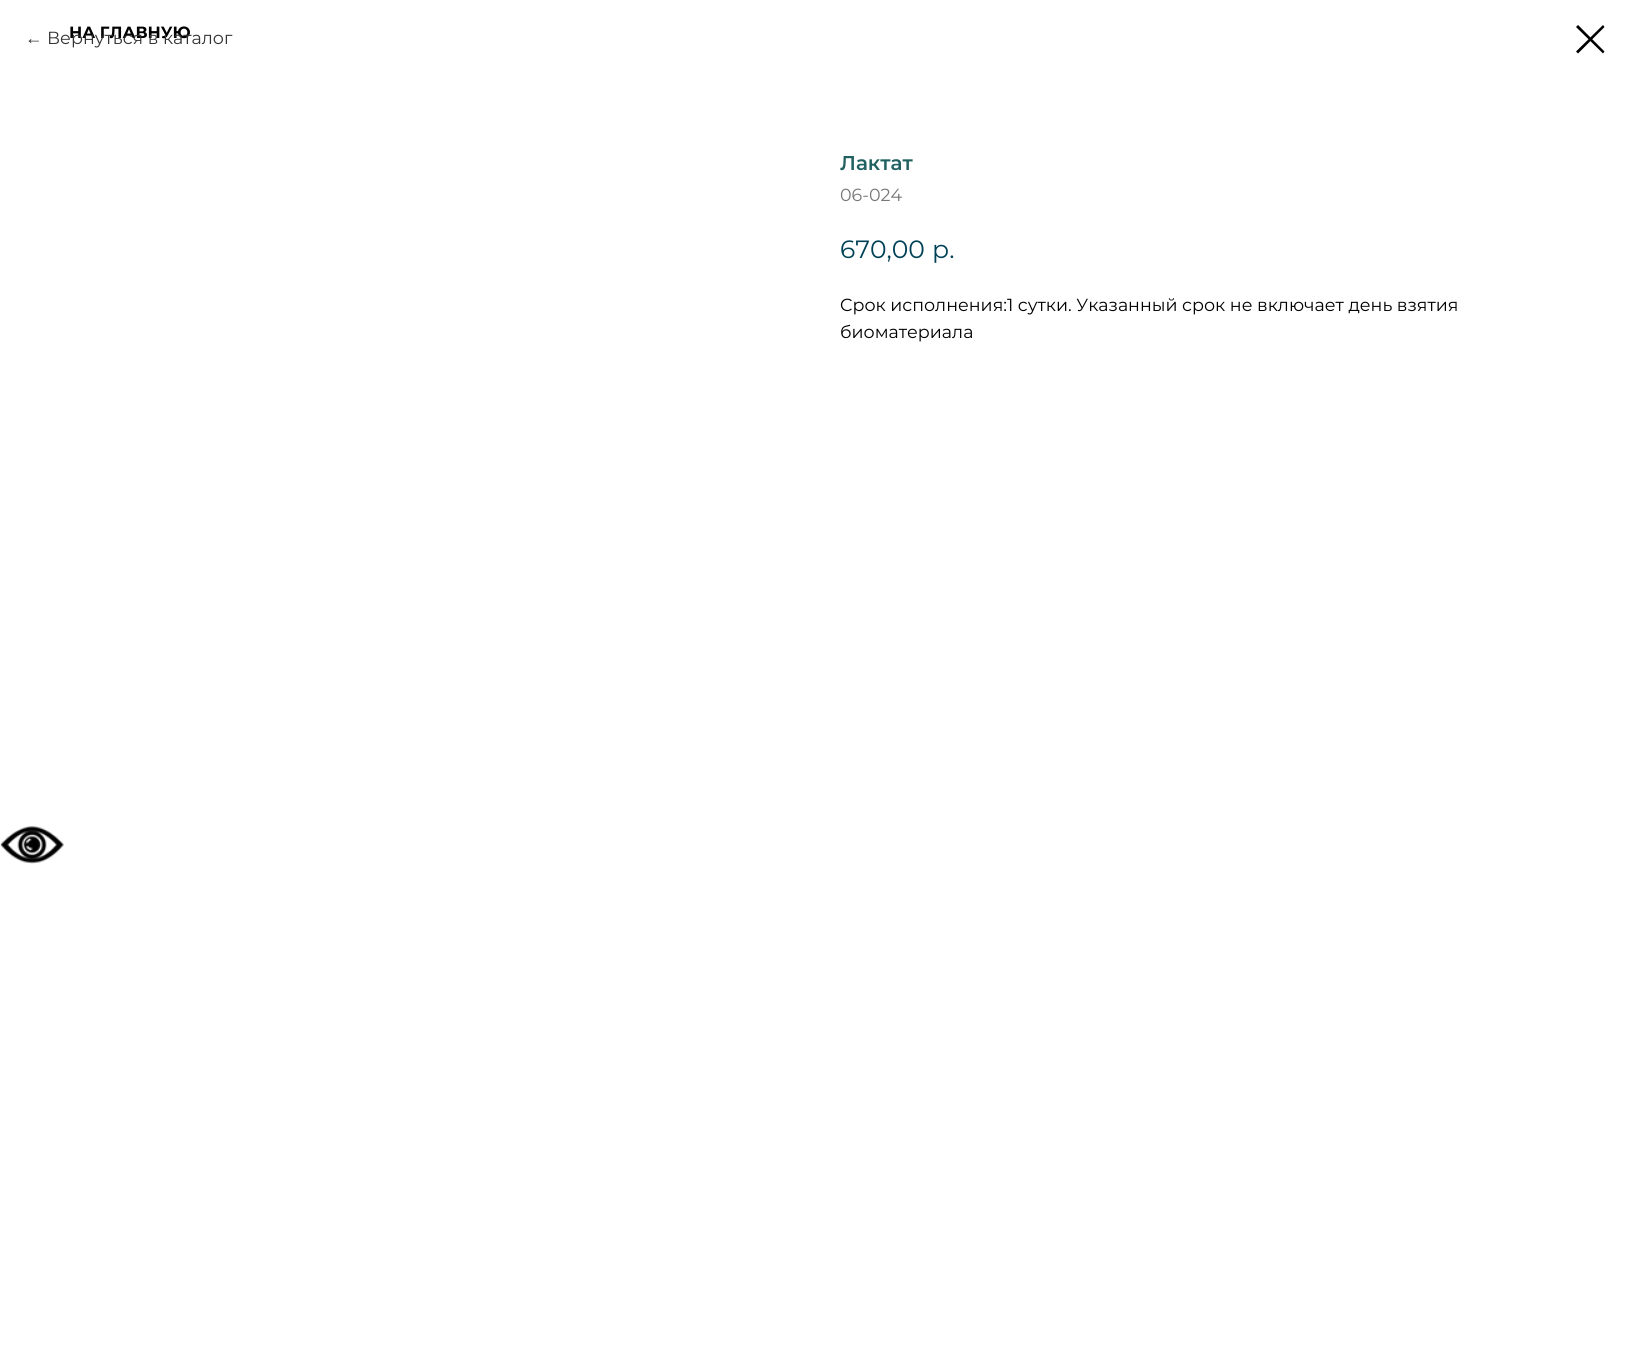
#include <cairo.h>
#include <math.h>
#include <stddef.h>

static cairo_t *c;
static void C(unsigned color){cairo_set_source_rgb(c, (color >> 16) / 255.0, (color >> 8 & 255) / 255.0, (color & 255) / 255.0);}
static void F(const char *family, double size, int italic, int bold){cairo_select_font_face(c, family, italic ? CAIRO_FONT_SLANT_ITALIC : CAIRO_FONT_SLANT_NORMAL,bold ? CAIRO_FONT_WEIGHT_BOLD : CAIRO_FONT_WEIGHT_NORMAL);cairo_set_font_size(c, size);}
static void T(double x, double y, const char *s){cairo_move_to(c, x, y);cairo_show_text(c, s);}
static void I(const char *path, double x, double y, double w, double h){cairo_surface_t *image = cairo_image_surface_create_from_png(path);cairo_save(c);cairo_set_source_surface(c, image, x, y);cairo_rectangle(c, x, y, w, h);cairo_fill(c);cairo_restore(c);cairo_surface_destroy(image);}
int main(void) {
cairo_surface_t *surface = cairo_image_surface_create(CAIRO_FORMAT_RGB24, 1630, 1364);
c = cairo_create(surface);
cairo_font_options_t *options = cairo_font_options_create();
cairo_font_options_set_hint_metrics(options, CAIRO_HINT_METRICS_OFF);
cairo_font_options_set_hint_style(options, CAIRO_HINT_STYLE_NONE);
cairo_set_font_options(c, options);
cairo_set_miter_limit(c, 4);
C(0xffffff);
cairo_paint(c);
F("Montserrat",16.25,0,1);
C(0x000000);
T(69,38,"НА ГЛАВНУЮ");
I("1.png",0,826,64,38);
F("Liberation Sans",17.5,0,0);
C(0x333333);
T(25,44,"←");
F("Montserrat",17.5,0,0);
T(47,44,"Вернуться в каталог");
C(0x000000);
cairo_set_fill_rule(c,CAIRO_FILL_RULE_EVEN_ODD);
cairo_new_path(c);
cairo_move_to(c,1576,27);
cairo_line_to(c,1578,25);
cairo_line_to(c,1604.5,51.5);
cairo_line_to(c,1603,53.5);
cairo_close_path(c);
cairo_fill(c);
cairo_new_path(c);
cairo_move_to(c,1603,25);
cairo_line_to(c,1604.5,27);
cairo_line_to(c,1578,53.5);
cairo_line_to(c,1576,51.5);
cairo_close_path(c);
cairo_fill(c);
F("Montserrat SemiBold",20,0,0);
C(0x226161);
T(840,170,"Лактат");
F("Montserrat",17.5,0,0);
C(0x777777);
T(840,201,"06-024");
F("Montserrat",25,0,0);
C(0x004156);
T(840,258,"670,00");
T(932,258,"р.");
F("Montserrat",17.5,0,0);
C(0x000000);
T(840,311,"Cрок исполнения:1 сутки. Указанный срок не включает день взятия");
T(840,338,"биоматериала");
cairo_surface_write_to_png(surface, "o.png");
cairo_font_options_destroy(options);
cairo_destroy(c);
cairo_surface_destroy(surface);
return 0;
}
